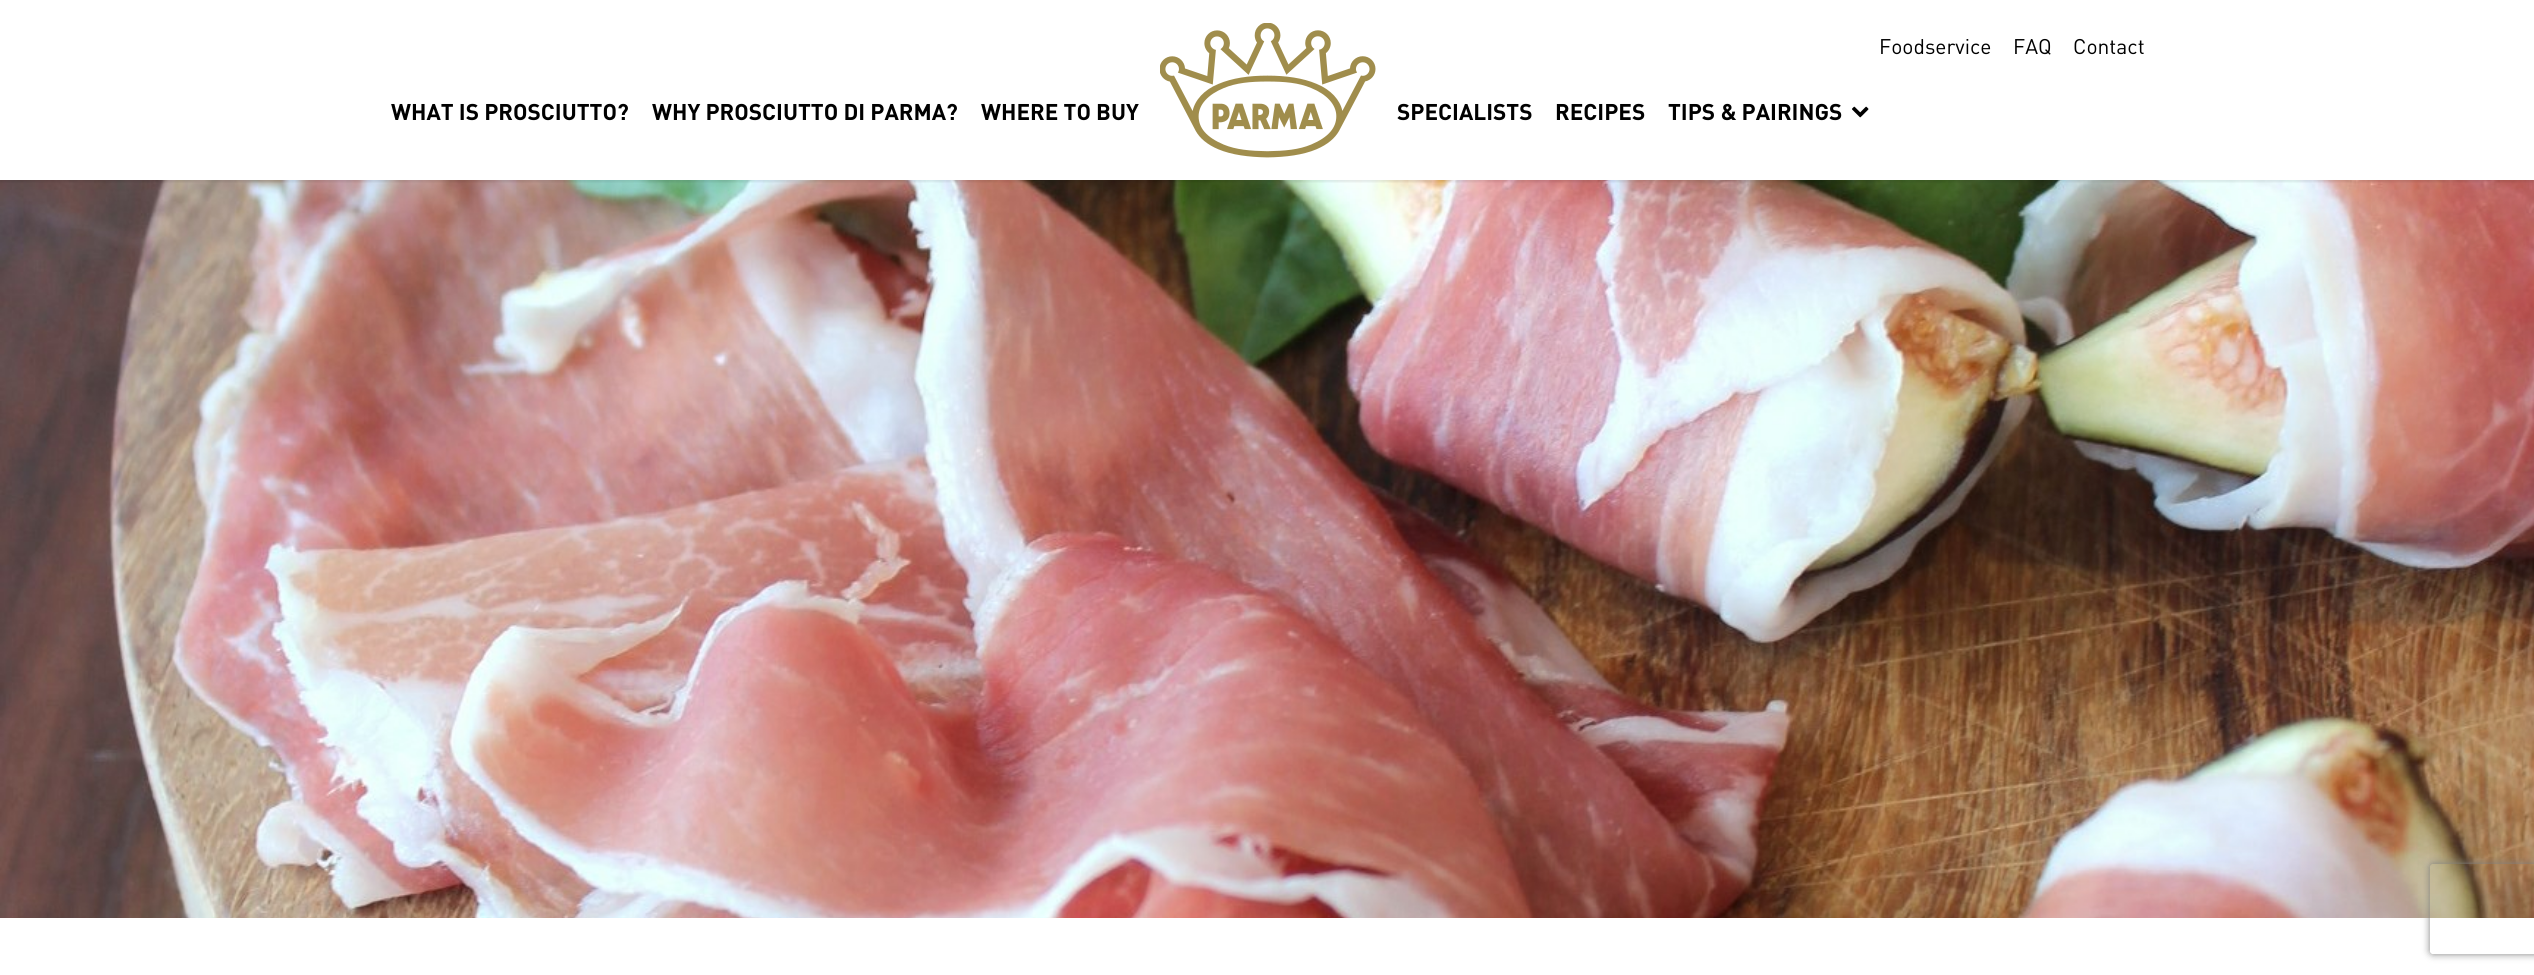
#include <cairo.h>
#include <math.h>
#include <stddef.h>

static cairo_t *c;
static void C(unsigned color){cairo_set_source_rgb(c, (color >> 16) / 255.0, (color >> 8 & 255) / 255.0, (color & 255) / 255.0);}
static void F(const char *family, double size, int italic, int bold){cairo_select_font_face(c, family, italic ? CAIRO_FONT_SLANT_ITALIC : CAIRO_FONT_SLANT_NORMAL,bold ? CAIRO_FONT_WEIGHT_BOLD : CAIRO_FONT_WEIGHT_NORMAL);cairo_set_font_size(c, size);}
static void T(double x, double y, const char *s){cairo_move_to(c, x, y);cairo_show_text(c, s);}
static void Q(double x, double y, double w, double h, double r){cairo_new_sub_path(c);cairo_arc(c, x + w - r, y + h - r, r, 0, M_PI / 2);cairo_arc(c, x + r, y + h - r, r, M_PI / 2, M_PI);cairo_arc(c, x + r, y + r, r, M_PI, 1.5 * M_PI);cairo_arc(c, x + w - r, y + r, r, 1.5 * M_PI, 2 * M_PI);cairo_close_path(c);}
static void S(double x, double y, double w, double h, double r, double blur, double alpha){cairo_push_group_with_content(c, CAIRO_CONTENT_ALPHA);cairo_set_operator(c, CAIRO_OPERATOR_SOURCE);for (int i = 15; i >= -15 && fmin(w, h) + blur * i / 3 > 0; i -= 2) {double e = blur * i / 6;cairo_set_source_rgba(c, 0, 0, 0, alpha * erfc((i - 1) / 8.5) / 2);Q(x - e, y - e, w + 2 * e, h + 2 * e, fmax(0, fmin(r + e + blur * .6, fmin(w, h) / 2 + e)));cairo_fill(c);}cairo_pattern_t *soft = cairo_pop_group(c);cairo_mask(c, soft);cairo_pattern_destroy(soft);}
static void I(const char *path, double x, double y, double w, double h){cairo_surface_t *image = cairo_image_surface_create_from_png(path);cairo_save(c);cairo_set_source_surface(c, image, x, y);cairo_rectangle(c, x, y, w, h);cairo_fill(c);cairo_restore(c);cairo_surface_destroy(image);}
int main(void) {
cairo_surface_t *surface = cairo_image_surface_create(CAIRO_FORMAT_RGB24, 2534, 975);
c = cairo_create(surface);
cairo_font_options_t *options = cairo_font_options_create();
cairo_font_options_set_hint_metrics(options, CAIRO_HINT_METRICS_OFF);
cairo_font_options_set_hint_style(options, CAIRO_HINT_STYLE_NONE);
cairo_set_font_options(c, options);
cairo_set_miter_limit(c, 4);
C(0xffffff);
cairo_paint(c);
I("3.png",0,180,2534,738);
cairo_save(c);
cairo_rectangle(c,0,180,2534,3);
cairo_clip(c);
C(0x000000);
S(0,2,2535,180,0,1,.08);
cairo_restore(c);
I("1.png",1160,23,216,135);
F("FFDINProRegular",21,0,0);
C(0x000000);
T(1879,54,"Foodservice");
T(2013,54,"FAQ");
T(2073,54,"Contact");
F("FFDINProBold",22.5,0,0);
T(391,120,"WHAT IS PROSCIUTTO?");
T(652,120,"WHY PROSCIUTTO DI PARMA?");
T(981,120,"WHERE TO BUY");
T(1397,120,"SPECIALISTS");
T(1555,120,"RECIPES");
T(1668,120,"TIPS & PAIRINGS");
I("2.png",1852,106,17,12);
cairo_save(c);
cairo_set_fill_rule(c,CAIRO_FILL_RULE_EVEN_ODD);
cairo_new_path(c);
cairo_move_to(c,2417,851);
cairo_line_to(c,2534,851);
cairo_line_to(c,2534,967);
cairo_line_to(c,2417,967);
cairo_close_path(c);
cairo_move_to(c,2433,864);
cairo_line_to(c,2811,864);
cairo_curve_to(c,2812.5,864,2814,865.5,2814,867);
cairo_line_to(c,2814,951);
cairo_curve_to(c,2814,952.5,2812.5,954,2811,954);
cairo_line_to(c,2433,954);
cairo_curve_to(c,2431.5,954,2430,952.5,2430,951);
cairo_line_to(c,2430,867);
cairo_curve_to(c,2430,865.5,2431.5,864,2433,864);
cairo_close_path(c);
cairo_clip(c);
C(0x808080);
S(2430,864,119,90,3,4,1);
cairo_restore(c);
cairo_surface_write_to_png(surface, "o.png");
cairo_font_options_destroy(options);
cairo_destroy(c);
cairo_surface_destroy(surface);
return 0;
}
